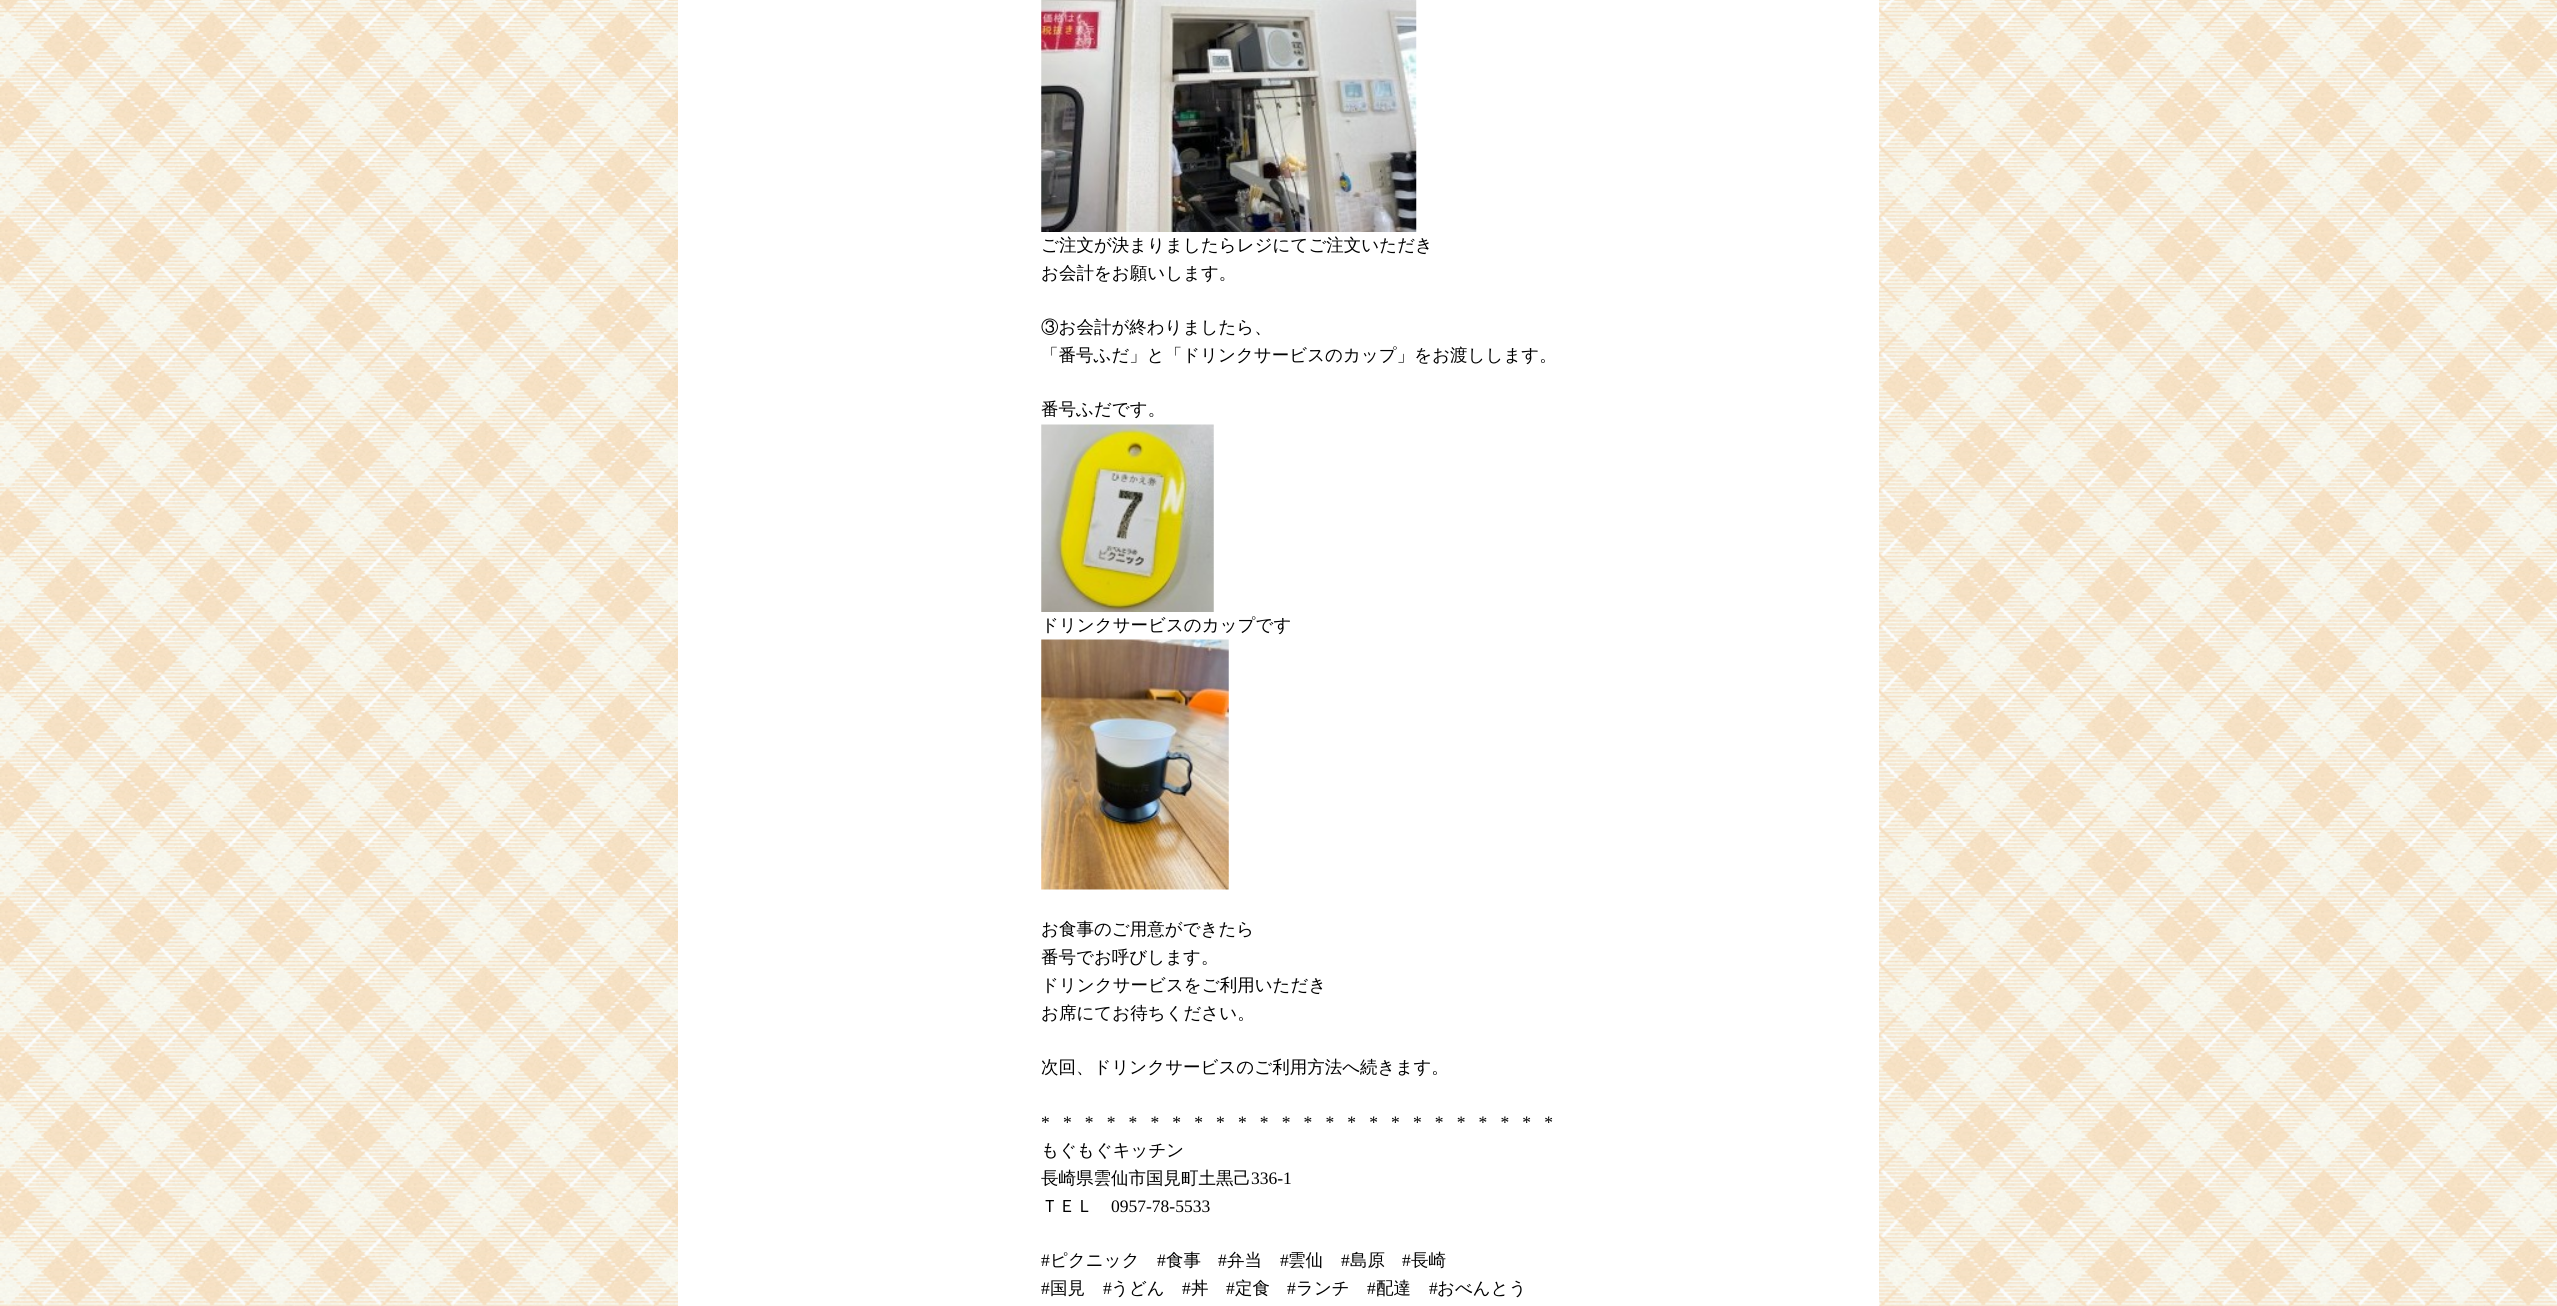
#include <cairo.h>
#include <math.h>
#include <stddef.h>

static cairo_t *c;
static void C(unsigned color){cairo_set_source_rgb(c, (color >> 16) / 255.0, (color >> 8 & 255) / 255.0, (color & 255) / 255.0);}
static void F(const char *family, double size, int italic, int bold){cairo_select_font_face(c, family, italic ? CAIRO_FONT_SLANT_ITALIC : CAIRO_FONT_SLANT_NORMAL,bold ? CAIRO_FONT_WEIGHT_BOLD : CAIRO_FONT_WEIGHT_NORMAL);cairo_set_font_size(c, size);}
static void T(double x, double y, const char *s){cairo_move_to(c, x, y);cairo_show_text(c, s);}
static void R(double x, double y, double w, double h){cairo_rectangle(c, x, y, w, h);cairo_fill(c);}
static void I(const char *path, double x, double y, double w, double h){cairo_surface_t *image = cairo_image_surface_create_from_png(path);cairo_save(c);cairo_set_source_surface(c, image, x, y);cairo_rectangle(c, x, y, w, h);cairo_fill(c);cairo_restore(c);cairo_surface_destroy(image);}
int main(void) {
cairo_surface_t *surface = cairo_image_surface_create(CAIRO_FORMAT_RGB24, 2557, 1306);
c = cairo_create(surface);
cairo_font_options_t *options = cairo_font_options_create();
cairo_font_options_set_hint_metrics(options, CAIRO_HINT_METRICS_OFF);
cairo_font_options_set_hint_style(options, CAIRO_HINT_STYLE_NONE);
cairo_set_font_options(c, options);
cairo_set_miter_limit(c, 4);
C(0xffffff);
cairo_paint(c);
I("1.png",0,0,2557,1306);
C(0xffffff);
R(678,0,1201,1306);
I("2.png",1041,0,376,232);
F("WenQuanYi Zen Hei Medium",17.5,0,0);
C(0x000000);
T(1041,251,"ご注文が決まりましたらレジにてご注文いただき");
T(1041,279,"お会計をお願いします。");
T(1041,333,"③お会計が終わりましたら、");
T(1041,361,"「番号ふだ」と「ドリンクサービスのカップ」をお渡しします。");
T(1041,415,"番号ふだです。");
I("3.png",1041,424,173,188);
T(1041,631,"ドリンクサービスのカップです");
I("4.png",1041,639,188,251);
T(1041,935,"お食事のご用意ができたら");
T(1041,963,"番号でお呼びします。");
T(1041,991,"ドリンクサービスをご利用いただき");
T(1041,1019,"お席にてお待ちください。");
T(1041,1073,"次回、ドリンクサービスのご利用方法へ続きます。");
F("Liberation Serif",17.5,0,0);
T(1041,1128,"*   *   *   *   *   *   *   *   *   *   *   *   *   *   *   *   *   *   *   *   *   *   *   *");
F("WenQuanYi Zen Hei Medium",17.5,0,0);
T(1041,1156,"もぐもぐキッチン");
T(1041,1184,"長崎県雲仙市国見町土黒己");
F("Liberation Serif",17.5,0,0);
T(1251,1184,"336-1");
F("WenQuanYi Zen Hei Medium",17.5,0,0);
T(1041,1212,"ＴＥＬ");
F("Liberation Serif",17.5,0,0);
T(1111,1212,"0957-78-5533");
T(1041,1266,"#");
F("WenQuanYi Zen Hei Medium",17.5,0,0);
T(1050,1266,"ピクニック");
F("Liberation Serif",17.5,0,0);
T(1157,1266,"#");
F("WenQuanYi Zen Hei Medium",17.5,0,0);
T(1166,1266,"食事");
F("Liberation Serif",17.5,0,0);
T(1218,1266,"#");
F("WenQuanYi Zen Hei Medium",17.5,0,0);
T(1227,1266,"弁当");
F("Liberation Serif",17.5,0,0);
T(1280,1266,"#");
F("WenQuanYi Zen Hei Medium",17.5,0,0);
T(1288,1266,"雲仙");
F("Liberation Serif",17.5,0,0);
T(1341,1266,"#");
F("WenQuanYi Zen Hei Medium",17.5,0,0);
T(1350,1266,"島原");
F("Liberation Serif",17.5,0,0);
T(1402,1266,"#");
F("WenQuanYi Zen Hei Medium",17.5,0,0);
T(1411,1266,"長崎");
F("Liberation Serif",17.5,0,0);
T(1041,1294,"#");
F("WenQuanYi Zen Hei Medium",17.5,0,0);
T(1050,1294,"国見");
F("Liberation Serif",17.5,0,0);
T(1103,1294,"#");
F("WenQuanYi Zen Hei Medium",17.5,0,0);
T(1111,1294,"うどん");
F("Liberation Serif",17.5,0,0);
T(1182,1294,"#");
F("WenQuanYi Zen Hei Medium",17.5,0,0);
T(1191,1294,"丼");
F("Liberation Serif",17.5,0,0);
T(1226,1294,"#");
F("WenQuanYi Zen Hei Medium",17.5,0,0);
T(1235,1294,"定食");
F("Liberation Serif",17.5,0,0);
T(1287,1294,"#");
F("WenQuanYi Zen Hei Medium",17.5,0,0);
T(1296,1294,"ランチ");
F("Liberation Serif",17.5,0,0);
T(1367,1294,"#");
F("WenQuanYi Zen Hei Medium",17.5,0,0);
T(1376,1294,"配達");
F("Liberation Serif",17.5,0,0);
T(1429,1294,"#");
F("WenQuanYi Zen Hei Medium",17.5,0,0);
T(1437,1294,"おべんとう");
cairo_surface_write_to_png(surface, "o.png");
cairo_font_options_destroy(options);
cairo_destroy(c);
cairo_surface_destroy(surface);
return 0;
}
